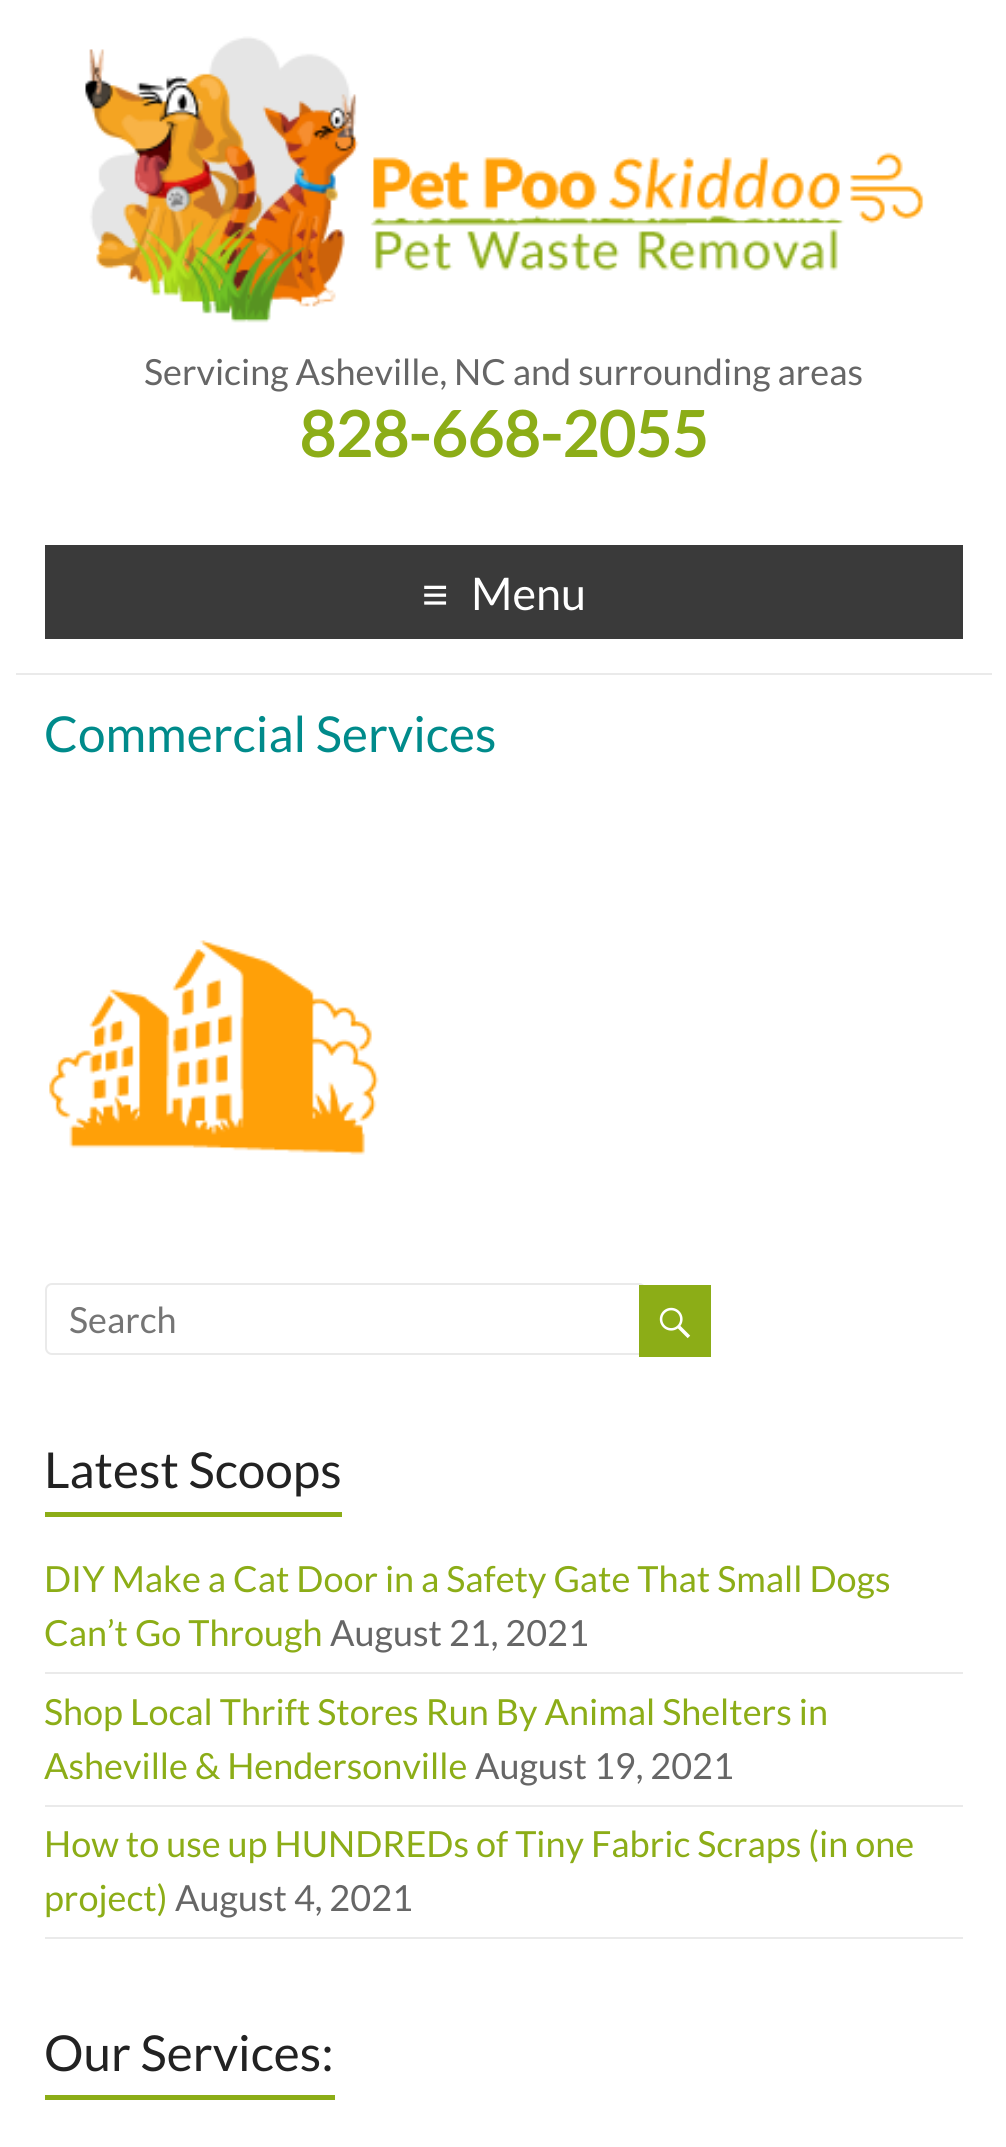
#include <cairo.h>
#include <math.h>
#include <stddef.h>

static cairo_t *c;
static void C(unsigned color){cairo_set_source_rgb(c, (color >> 16) / 255.0, (color >> 8 & 255) / 255.0, (color & 255) / 255.0);}
static void F(const char *family, double size, int italic, int bold){cairo_select_font_face(c, family, italic ? CAIRO_FONT_SLANT_ITALIC : CAIRO_FONT_SLANT_NORMAL,bold ? CAIRO_FONT_WEIGHT_BOLD : CAIRO_FONT_WEIGHT_NORMAL);cairo_set_font_size(c, size);}
static void T(double x, double y, const char *s){cairo_move_to(c, x, y);cairo_show_text(c, s);}
static void R(double x, double y, double w, double h){cairo_rectangle(c, x, y, w, h);cairo_fill(c);}
static void Q(double x, double y, double w, double h, double r){cairo_new_sub_path(c);cairo_arc(c, x + w - r, y + h - r, r, 0, M_PI / 2);cairo_arc(c, x + r, y + h - r, r, M_PI / 2, M_PI);cairo_arc(c, x + r, y + r, r, M_PI, 1.5 * M_PI);cairo_arc(c, x + w - r, y + r, r, 1.5 * M_PI, 2 * M_PI);cairo_close_path(c);}
static void I(const char *path, double x, double y, double w, double h){cairo_surface_t *image = cairo_image_surface_create_from_png(path);cairo_save(c);cairo_set_source_surface(c, image, x, y);cairo_rectangle(c, x, y, w, h);cairo_fill(c);cairo_restore(c);cairo_surface_destroy(image);}
int main(void) {
cairo_surface_t *surface = cairo_image_surface_create(CAIRO_FORMAT_RGB24, 1006, 2147);
c = cairo_create(surface);
cairo_font_options_t *options = cairo_font_options_create();
cairo_font_options_set_hint_metrics(options, CAIRO_HINT_METRICS_OFF);
cairo_font_options_set_hint_style(options, CAIRO_HINT_STYLE_NONE);
cairo_set_font_options(c, options);
cairo_set_miter_limit(c, 4);
C(0xffffff);
cairo_paint(c);
C(0xeaeaea);
R(16,673,976,2);
I("1.png",85,36,839,287);
F("Lato",36,0,0);
C(0x666666);
T(144,385,"Servicing Asheville, NC and surrounding areas");
F("Lato",63,0,1);
C(0x8cad17);
T(299,457,"828-668-2055");
C(0x3a3a3a);
R(45,545,918,94);
F("Liberation Sans",45,0,0);
C(0xffffff);
T(422,610,"≡");
F("Lato",45,0,0);
T(471,610,"Menu");
F("Lato",49.5,0,0);
C(0x008b8b);
T(44,752,"Commercial Services");
I("2.png",49,940,330,215);
Q(46,1284,599,70,6);
C(0xeaeaea);
cairo_stroke(c);
F("Lato",36,0,0);
C(0x757575);
T(69,1333,"Search");
C(0x8cad17);
R(639,1285,72,72);
I("3.png",659,1307,32,32);
F("Lato",49.5,0,0);
C(0x222222);
T(44,1488,"Latest Scoops");
C(0x8cad17);
R(45,1512,297,5);
C(0xeaeaea);
R(45,1672,918,2);
F("Lato",36,0,0);
C(0x8cad17);
T(44,1592,"DIY Make a Cat Door in a Safety Gate That Small Dogs");
T(44,1646,"Can’t Go Through");
C(0x666666);
T(330,1646,"August 21, 2021");
C(0xeaeaea);
R(45,1805,918,2);
C(0x8cad17);
T(44,1725,"Shop Local Thrift Stores Run By Animal Shelters in");
T(44,1779,"Asheville & Hendersonville");
C(0x666666);
T(475,1779,"August 19, 2021");
C(0xeaeaea);
R(45,1937,918,2);
C(0x8cad17);
T(44,1857,"How to use up HUNDREDs of Tiny Fabric Scraps (in one");
T(44,1911,"project)");
C(0x666666);
T(175,1911,"August 4, 2021");
F("Lato",49.5,0,0);
C(0x222222);
T(44,2071,"Our Services:");
C(0x8cad17);
R(45,2095,290,5);
cairo_surface_write_to_png(surface, "o.png");
cairo_font_options_destroy(options);
cairo_destroy(c);
cairo_surface_destroy(surface);
return 0;
}
